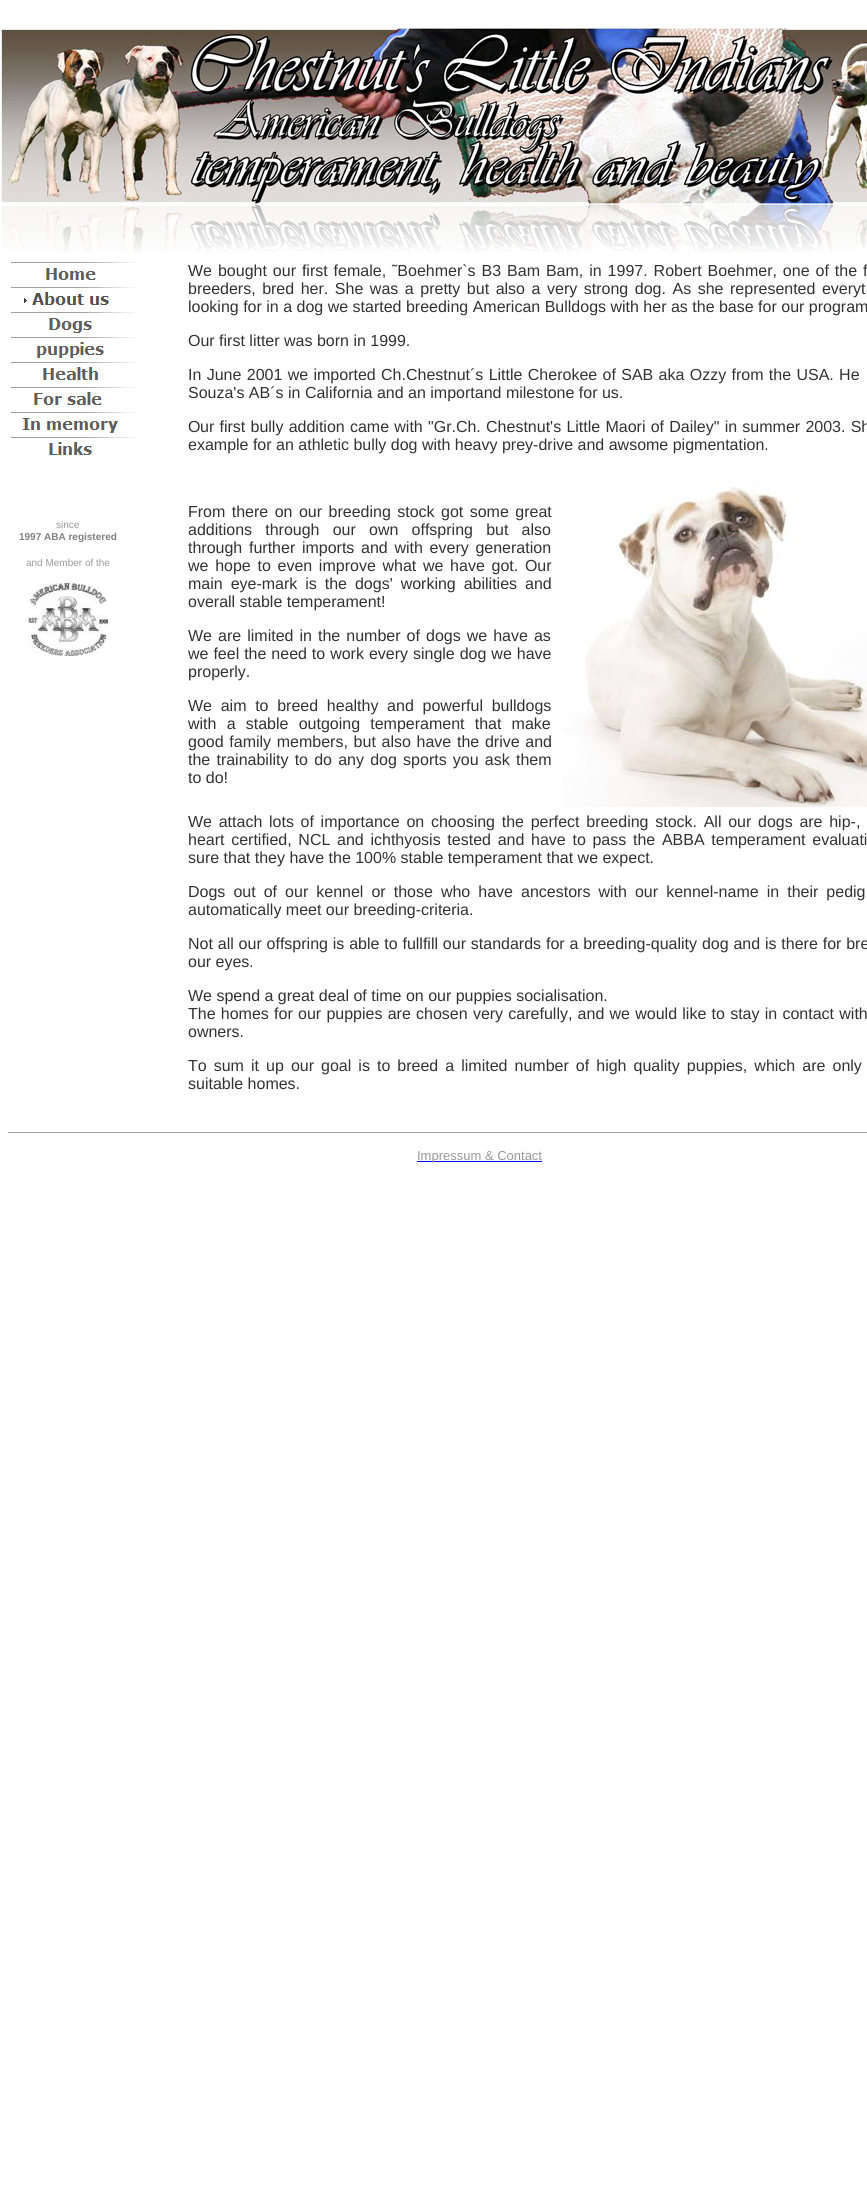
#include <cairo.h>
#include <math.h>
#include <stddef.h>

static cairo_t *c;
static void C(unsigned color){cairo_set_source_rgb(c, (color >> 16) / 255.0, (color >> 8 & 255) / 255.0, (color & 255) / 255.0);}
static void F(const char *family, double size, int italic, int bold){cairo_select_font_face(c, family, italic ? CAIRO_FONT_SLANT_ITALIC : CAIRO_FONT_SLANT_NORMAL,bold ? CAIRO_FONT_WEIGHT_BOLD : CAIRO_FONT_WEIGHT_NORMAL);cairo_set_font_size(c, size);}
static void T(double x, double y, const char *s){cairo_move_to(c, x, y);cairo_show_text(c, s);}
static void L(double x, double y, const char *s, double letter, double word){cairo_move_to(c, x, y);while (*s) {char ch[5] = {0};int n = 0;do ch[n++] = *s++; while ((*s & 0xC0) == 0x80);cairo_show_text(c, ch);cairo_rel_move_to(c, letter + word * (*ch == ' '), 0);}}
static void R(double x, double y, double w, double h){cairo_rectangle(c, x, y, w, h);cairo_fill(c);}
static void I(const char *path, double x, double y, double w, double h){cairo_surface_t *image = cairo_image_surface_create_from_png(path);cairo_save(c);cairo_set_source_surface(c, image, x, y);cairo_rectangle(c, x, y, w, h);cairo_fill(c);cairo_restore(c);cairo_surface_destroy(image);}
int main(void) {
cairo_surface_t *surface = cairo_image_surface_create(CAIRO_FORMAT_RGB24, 867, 2197);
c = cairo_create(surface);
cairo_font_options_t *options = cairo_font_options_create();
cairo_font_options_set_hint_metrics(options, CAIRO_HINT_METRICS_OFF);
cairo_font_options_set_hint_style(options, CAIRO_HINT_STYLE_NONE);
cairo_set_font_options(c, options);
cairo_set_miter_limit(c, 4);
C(0xffffff);
cairo_paint(c);
I("1.png",0,28,867,224);
I("2.png",11,262,125,18);
I("3.png",11,287,125,18);
I("4.png",11,312,125,21);
I("5.png",11,337,125,21);
I("6.png",11,362,125,18);
I("7.png",11,387,125,18);
I("8.png",11,412,125,21);
I("9.png",11,437,125,18);
F("Liberation Sans",10,0,0);
C(0x999999);
T(56,528,"since");
F("Liberation Sans",10,0,1);
C(0x808080);
T(19,540,"1997 ABA registered");
F("Liberation Sans",10,0,0);
C(0x999999);
T(26,566,"and Member of the");
I("10.png",28,583,80,73);
F("Liberation Sans",16,0,0);
C(0x323232);
L(188,276,"We bought our first female, ˜Boehmer`s B3 Bam Bam, in 1997. Robert Boehmer, one of the f",0,1.5);
L(188,294,"breeders, bred her. She was a pretty but also a very strong dog. As she represented everyt",0,2.1);
T(188,312,"looking for in a dog we started breeding American Bulldogs with her as the base for our program");
T(188,346,"Our first litter was born in 1999.");
L(188,380,"In June 2001 we imported Ch.Chestnut´s Little Cherokee of SAB aka Ozzy from the USA. He",0,.9);
T(188,398,"Souza's AB´s in California and an importand milestone for us.");
T(188,432,"O");
L(200,432,"ur first bully addition came with \"Gr.Ch. Chestnut's Little Maori of Dailey\" in summer 2003. Sh",0,.8);
T(188,450,"example for an athletic bully dog with heavy prey-drive and awsome pigmentation.");
L(188,517,"From there on our breeding stock got some great",0,2);
L(188,535,"additions through our own offspring but also",0,8.75);
L(188,553,"through further imports and with every generation",0,2.25);
L(188,571,"we hope to even improve what we have got. Our",0,2.25);
L(188,589,"main eye-mark is the dogs' working abilities and",0,3.5);
T(188,607,"overall stable temperament!");
L(188,641,"We are limited in the number of dogs we have as",0,1.6);
L(188,659,"we feel the need to work every single dog we have",0,.5);
T(188,677,"properly.");
L(188,711,"We aim to breed healthy and powerful bulldogs",0,4.25);
L(188,729,"with a stable outgoing temperament that make",0,5.75);
L(188,747,"good family members, but also have the drive and",0,1.25);
L(188,765,"the trainability to do any dog sports you ask them",0,1.75);
T(188,783,"to do!");
I("11.png",563,482,304,325);
L(188,827,"We attach lots of importance on choosing the perfect breeding stock. All our dogs are hip-,",0,2.25);
L(188,845,"heart certified, NCL and ichthyosis tested and have to pass the ABBA temperament evaluati",0,2.25);
T(188,863,"sure that they have the 100% stable temperament that we expect.");
L(188,897,"Dogs out of our kennel or those who have ancestors with our kennel-name in their pedigr",0,3.6);
T(188,915,"automatically meet our breeding-criteria.");
L(188,949,"Not all our offspring is able to fullfill our standards for a breeding-quality dog and is there for bre",0,.4);
T(188,967,"our eyes.");
T(188,1001,"We spend a great deal of time on our puppies socialisation.");
L(188,1019,"The homes for our puppies are chosen very carefully, and we would like to stay in contact with",0,.8);
T(188,1037,"owners.");
L(188,1071,"To sum it up our goal is to breed a limited number of high quality puppies, which are only",0,2.6);
T(188,1089,"suitable homes.");
C(0x9f9f9f);
R(8,1132,859,1);
C(0x0000ee);
R(417,1161,125,1);
F("Liberation Sans",13,0,0);
C(0x999999);
T(417,1160,"Impressum & Contact");
cairo_surface_write_to_png(surface, "o.png");
cairo_font_options_destroy(options);
cairo_destroy(c);
cairo_surface_destroy(surface);
return 0;
}
